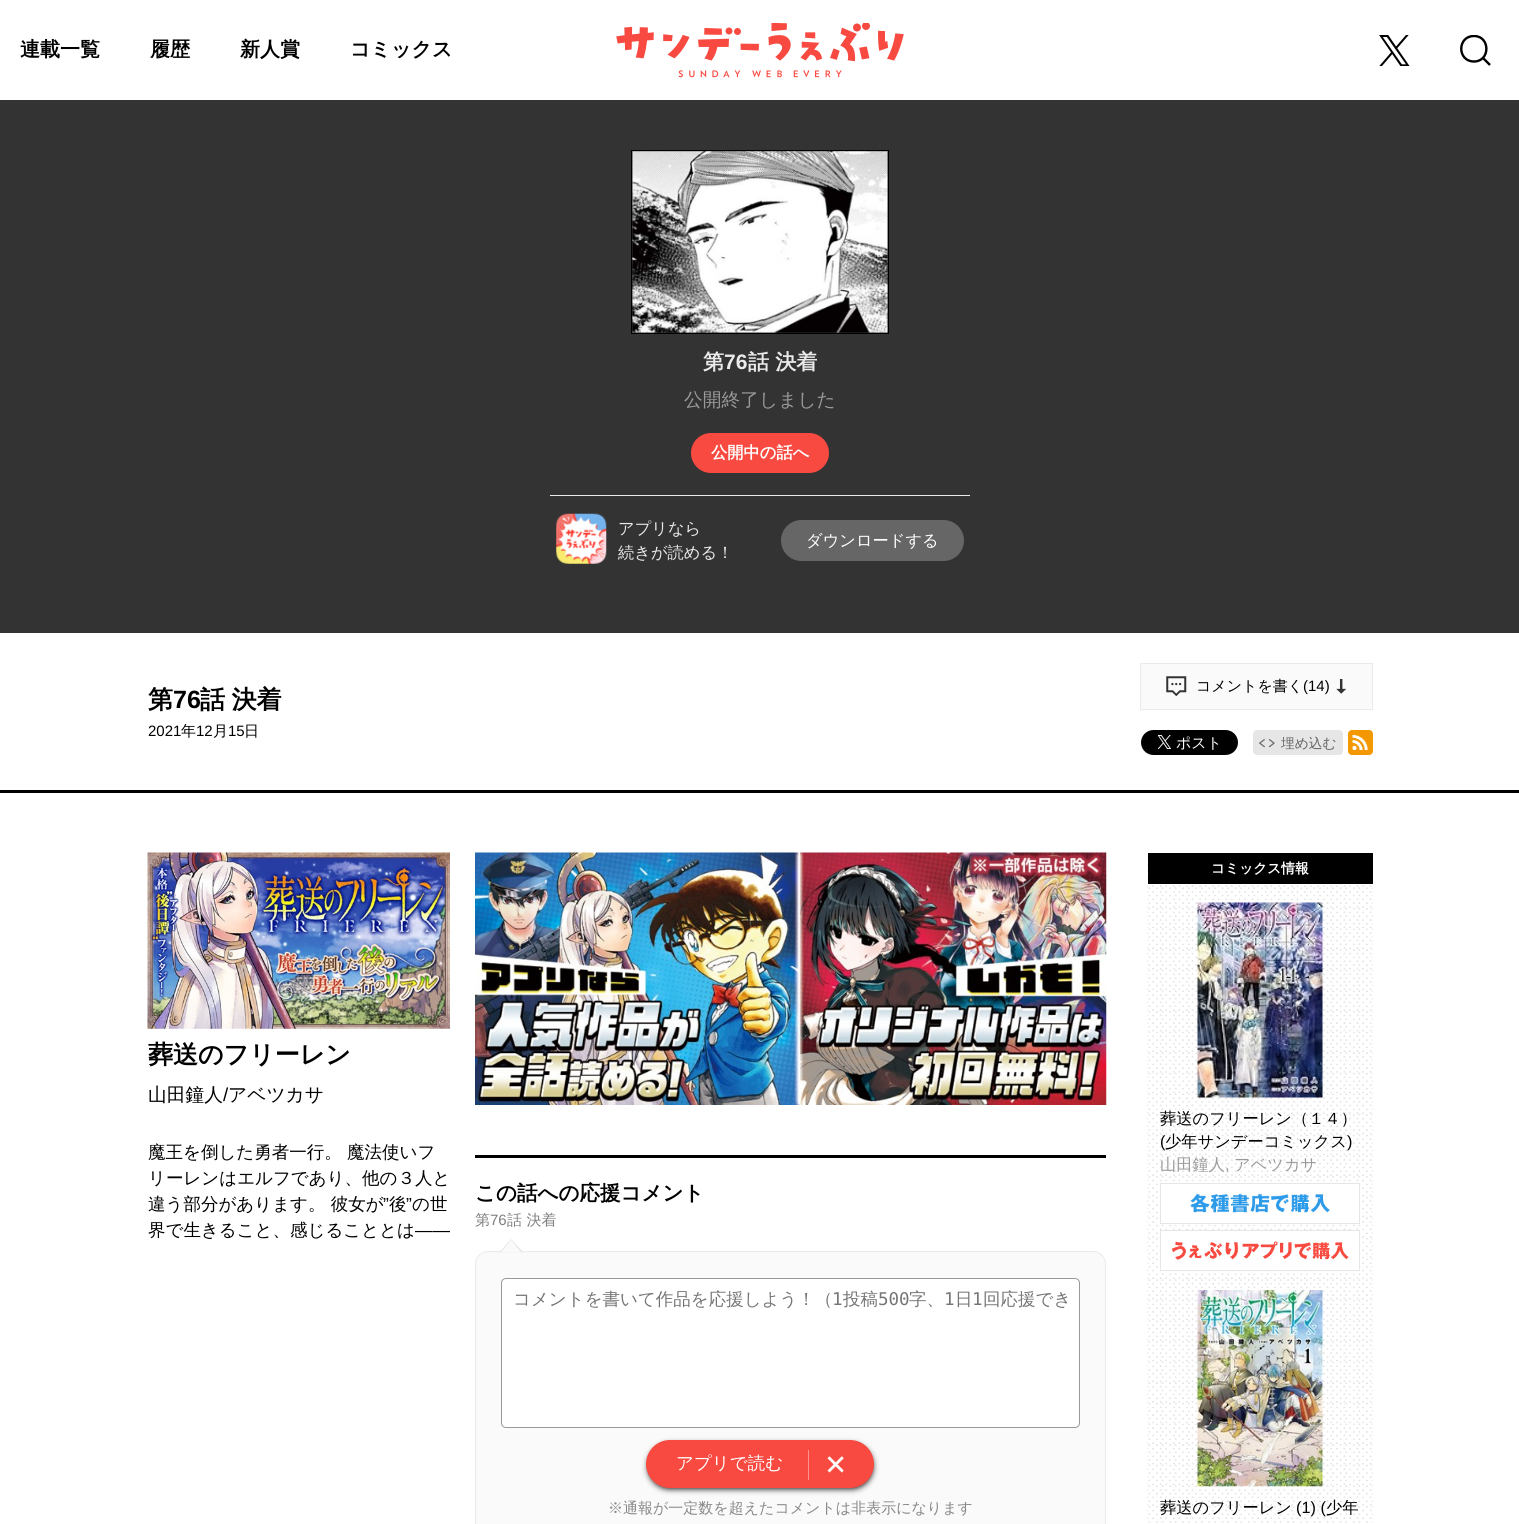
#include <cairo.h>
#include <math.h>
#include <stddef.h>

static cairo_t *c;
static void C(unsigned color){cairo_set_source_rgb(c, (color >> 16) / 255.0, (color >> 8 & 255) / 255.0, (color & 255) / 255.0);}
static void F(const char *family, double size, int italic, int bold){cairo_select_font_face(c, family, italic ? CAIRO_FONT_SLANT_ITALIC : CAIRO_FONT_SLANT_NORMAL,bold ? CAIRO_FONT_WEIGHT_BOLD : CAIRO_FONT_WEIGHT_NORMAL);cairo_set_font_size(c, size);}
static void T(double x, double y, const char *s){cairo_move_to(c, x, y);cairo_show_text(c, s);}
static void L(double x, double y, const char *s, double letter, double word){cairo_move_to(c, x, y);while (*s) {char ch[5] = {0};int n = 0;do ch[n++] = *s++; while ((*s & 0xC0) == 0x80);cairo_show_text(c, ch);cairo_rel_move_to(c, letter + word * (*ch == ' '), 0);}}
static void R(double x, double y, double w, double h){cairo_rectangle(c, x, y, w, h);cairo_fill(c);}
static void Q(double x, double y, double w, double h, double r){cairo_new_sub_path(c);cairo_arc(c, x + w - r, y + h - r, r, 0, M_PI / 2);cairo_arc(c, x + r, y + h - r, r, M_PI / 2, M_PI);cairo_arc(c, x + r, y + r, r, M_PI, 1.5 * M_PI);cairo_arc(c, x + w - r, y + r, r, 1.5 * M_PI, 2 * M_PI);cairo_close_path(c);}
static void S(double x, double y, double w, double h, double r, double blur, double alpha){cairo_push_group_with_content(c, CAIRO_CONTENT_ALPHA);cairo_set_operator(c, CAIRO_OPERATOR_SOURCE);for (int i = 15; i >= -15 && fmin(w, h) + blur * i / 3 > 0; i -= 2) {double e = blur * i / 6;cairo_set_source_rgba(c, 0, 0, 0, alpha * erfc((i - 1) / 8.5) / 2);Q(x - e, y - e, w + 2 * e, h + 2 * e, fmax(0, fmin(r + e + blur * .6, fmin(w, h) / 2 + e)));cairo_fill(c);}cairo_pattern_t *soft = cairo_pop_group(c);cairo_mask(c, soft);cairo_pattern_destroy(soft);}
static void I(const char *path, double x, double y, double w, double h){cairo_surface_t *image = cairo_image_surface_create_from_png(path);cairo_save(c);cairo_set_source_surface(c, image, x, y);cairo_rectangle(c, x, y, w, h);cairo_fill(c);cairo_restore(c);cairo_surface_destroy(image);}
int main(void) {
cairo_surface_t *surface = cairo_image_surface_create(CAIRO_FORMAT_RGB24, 1519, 1524);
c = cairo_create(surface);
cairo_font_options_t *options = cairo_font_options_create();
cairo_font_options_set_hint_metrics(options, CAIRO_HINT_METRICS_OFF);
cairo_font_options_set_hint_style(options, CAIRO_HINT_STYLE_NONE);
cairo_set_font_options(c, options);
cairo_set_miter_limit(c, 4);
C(0xffffff);
cairo_paint(c);
F("WenQuanYi Zen Hei",20,0,1);
C(0x000000);
T(20,56,"連載一覧");
T(150,56,"履歴");
T(240,56,"新人賞");
T(350,56,"コミックス");
I("1.png",1379,35,31,31);
cairo_save(c);
cairo_rectangle(c,1460,35,31,31);
cairo_clip(c);
cairo_new_path(c);
cairo_move_to(c,1483.5,58.5);
cairo_line_to(c,1490,65);
cairo_move_to(c,1474,36);
cairo_curve_to(c,1490.5,36,1490.5,61.5,1474,61.5);
cairo_curve_to(c,1457,61.5,1457,36,1474,36);
cairo_close_path(c);
cairo_set_line_width(c,2.4);
cairo_stroke(c);
cairo_restore(c);
I("2.png",616,23,288,55);
C(0x333333);
R(0,100,1519,533);
cairo_rectangle(c,631.5,150.5,257,183);
C(0x000000);
cairo_set_line_width(c,1);
cairo_stroke(c);
I("3.png",632,151,256,182);
F("WenQuanYi Zen Hei",21,0,1);
C(0xeaeaea);
T(703,369,"第");
F("Liberation Sans",21,0,1);
T(724,369,"76");
F("WenQuanYi Zen Hei",21,0,1);
T(748,369,"話 決着");
F("WenQuanYi Zen Hei Medium",18.75,0,0);
C(0x999999);
T(684,406,"公開終了しました");
C(0xf84a40);
Q(691,433,138,40,20);
cairo_fill(c);
F("WenQuanYi Zen Hei",16.25,0,1);
C(0xffffff);
T(711,458,"公開中の話へ");
C(0xeaeaea);
R(550,495,420,1);
I("4.png",556,513,51,51);
F("WenQuanYi Zen Hei Medium",16.25,0,0);
T(618,534,"アプリなら");
T(618,558,"続きが読める！");
C(0x666666);
Q(781,520,183,41,20.5);
cairo_fill(c);
C(0xffffff);
T(806,546,"ダウンロードする");
C(0x000000);
R(0,790,1519,3);
F("WenQuanYi Zen Hei",25,0,1);
T(148,708,"第");
F("Liberation Sans",25,0,1);
T(173,708,"76");
F("WenQuanYi Zen Hei",25,0,1);
L(200,708,"話 決着",0,-1);
F("Liberation Sans",15,0,0);
T(148,736,"2021");
F("WenQuanYi Zen Hei Medium",15,0,0);
T(181,736,"年");
F("Liberation Sans",15,0,0);
T(196,736,"12");
F("WenQuanYi Zen Hei Medium",15,0,0);
T(213,736,"月");
F("Liberation Sans",15,0,0);
T(228,736,"15");
F("WenQuanYi Zen Hei Medium",15,0,0);
T(244,736,"日");
C(0xfafafa);
cairo_rectangle(c,1140.5,663.5,232,46);
cairo_fill_preserve(c);
C(0xeaeaea);
cairo_stroke(c);
I("5.png",1166,676,21,20);
C(0x000000);
T(1196,691,"コメントを書く");
F("Liberation Sans",15,0,0);
T(1303,691,"(14)");
I("6.png",1336,679,10,15);
Q(1141,730,97,25,12.5);
cairo_fill(c);
I("7.png",1158,735,13,14);
F("WenQuanYi Zen Hei Medium",15,0,0);
C(0xffffff);
T(1176,748,"ポスト");
C(0xe6e6e6);
Q(1253,730,90,25,4);
cairo_fill(c);
I("8.png",1259,739,16,9);
F("WenQuanYi Zen Hei Medium",13.75,0,0);
C(0x666666);
T(1281,748,"埋め込む");
C(0xf39801);
Q(1348,730,25,25,4);
cairo_fill(c);
I("9.png",1352,735,16,15);
I("10.png",147,852,303,177);
F("WenQuanYi Zen Hei",25,0,1);
C(0x000000);
T(148,1063,"葬送のフリーレン");
F("WenQuanYi Zen Hei Medium",18.75,0,0);
T(148,1101,"山田鐘人");
F("Liberation Sans",18.75,0,0);
T(223,1101,"/");
F("WenQuanYi Zen Hei Medium",18.75,0,0);
T(228,1101,"アベツカサ");
F("WenQuanYi Zen Hei Medium",17.5,0,0);
T(148,1158,"魔王を倒した勇者一行。 魔法使いフ");
T(148,1184,"リーレンはエルフであり、他の３人と");
T(148,1210,"違う部分があります。 彼女が");
F("Liberation Sans",17.5,0,0);
T(383,1210,"”");
F("WenQuanYi Zen Hei Medium",17.5,0,0);
T(389,1210,"後");
F("Liberation Sans",17.5,0,0);
T(406,1210,"”");
F("WenQuanYi Zen Hei Medium",17.5,0,0);
T(412,1210,"の世");
T(148,1236,"界で生きること、感じることとは");
F("Liberation Sans",17.5,0,0);
T(415,1236,"――");
I("11.png",1147,857,226,666);
R(1148,853,225,31);
F("WenQuanYi Zen Hei",13.75,0,1);
C(0xffffff);
T(1211,873,"コミックス情報");
I("12.png",1197,902,126,196);
F("WenQuanYi Zen Hei Medium",16.25,0,0);
C(0x000000);
T(1160,1124,"葬送のフリーレン（１４）");
F("Liberation Sans",16.25,0,0);
T(1160,1147,"(");
F("WenQuanYi Zen Hei Medium",16.25,0,0);
T(1165,1147,"少年サンデーコミックス");
F("Liberation Sans",16.25,0,0);
T(1347,1147,")");
F("WenQuanYi Zen Hei Medium",16.25,0,0);
C(0x999999);
T(1160,1170,"山田鐘人");
F("Liberation Sans",16.25,0,0);
T(1225,1170,",");
F("WenQuanYi Zen Hei Medium",16.25,0,0);
T(1234,1170,"アベツカサ");
C(0xffffff);
cairo_rectangle(c,1160.5,1183.5,199,40);
cairo_fill_preserve(c);
C(0xe6e6e6);
cairo_stroke(c);
I("13.png",1190,1193,140,20);
C(0xffffff);
R(1161,1232,198,38);
cairo_rectangle(c,1160.5,1230.5,199,40);
C(0xe6e6e6);
cairo_stroke(c);
I("14.png",1171,1241,178,19);
I("15.png",1197,1290,126,197);
C(0x000000);
T(1160,1513,"葬送のフリーレン");
F("Liberation Sans",16.25,0,0);
T(1296,1513,"(1) (");
F("WenQuanYi Zen Hei Medium",16.25,0,0);
T(1326,1513,"少年");
I("16.png",475,852,632,253);
R(475,1155,631,3);
F("WenQuanYi Zen Hei",20.5,0,1);
T(475,1200,"この話への応援コメント");
F("WenQuanYi Zen Hei Medium",15,0,0);
C(0x808080);
T(475,1225,"第");
F("Liberation Sans",15,0,0);
T(490,1225,"76");
F("WenQuanYi Zen Hei Medium",15,0,0);
T(507,1225,"話 決着");
C(0xfafafa);
Q(475.5,1251.5,630,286,12.5);
cairo_fill_preserve(c);
C(0xeaeaea);
cairo_stroke(c);
cairo_new_path(c);
cairo_move_to(c,524,1252.5);
cairo_line_to(c,499,1252.5);
cairo_line_to(c,511,1239);
cairo_close_path(c);
cairo_fill(c);
C(0xfafafa);
cairo_new_path(c);
cairo_move_to(c,521,1252.5);
cairo_line_to(c,501,1252.5);
cairo_line_to(c,511,1240);
cairo_close_path(c);
cairo_fill(c);
C(0xffffff);
Q(501.5,1278.5,578,149,4.5);
cairo_fill_preserve(c);
C(0x999999);
cairo_stroke(c);
F("WenQuanYi Zen Hei Medium",17.5,0,0);
C(0x757575);
T(513,1305,"コメントを書いて作品を応援しよう！（");
F("DejaVu Sans Mono",17.5,0,0);
T(832,1305,"1");
F("WenQuanYi Zen Hei Medium",17.5,0,0);
T(843,1305,"投稿");
F("DejaVu Sans Mono",17.5,0,0);
T(878,1305,"500");
F("WenQuanYi Zen Hei Medium",17.5,0,0);
T(909,1305,"字、");
F("DejaVu Sans Mono",17.5,0,0);
T(944,1305,"1");
F("WenQuanYi Zen Hei Medium",17.5,0,0);
T(955,1305,"日");
F("DejaVu Sans Mono",17.5,0,0);
T(972,1305,"1");
F("WenQuanYi Zen Hei Medium",17.5,0,0);
T(983,1305,"回応援でき");
Q(716.5,1440.5,148,42,19.5);
C(0xeaeaea);
cairo_stroke(c);
F("WenQuanYi Zen Hei Medium",15,0,0);
C(0x888888);
T(608,1513,"※通報が一定数を超えたコメントは非表示になります");
C(0x000000);
S(648,1444,225,45,22.5,3,.9);
C(0xf84a40);
Q(646,1440,228,48,24);
cairo_fill(c);
F("WenQuanYi Zen Hei Medium",17.5,0,0);
C(0xffffff);
T(676,1469,"アプリで読む");
C(0xfb928c);
R(808,1450,1,30);
I("17.png",827,1456,17,17);
cairo_surface_write_to_png(surface, "o.png");
cairo_font_options_destroy(options);
cairo_destroy(c);
cairo_surface_destroy(surface);
return 0;
}
